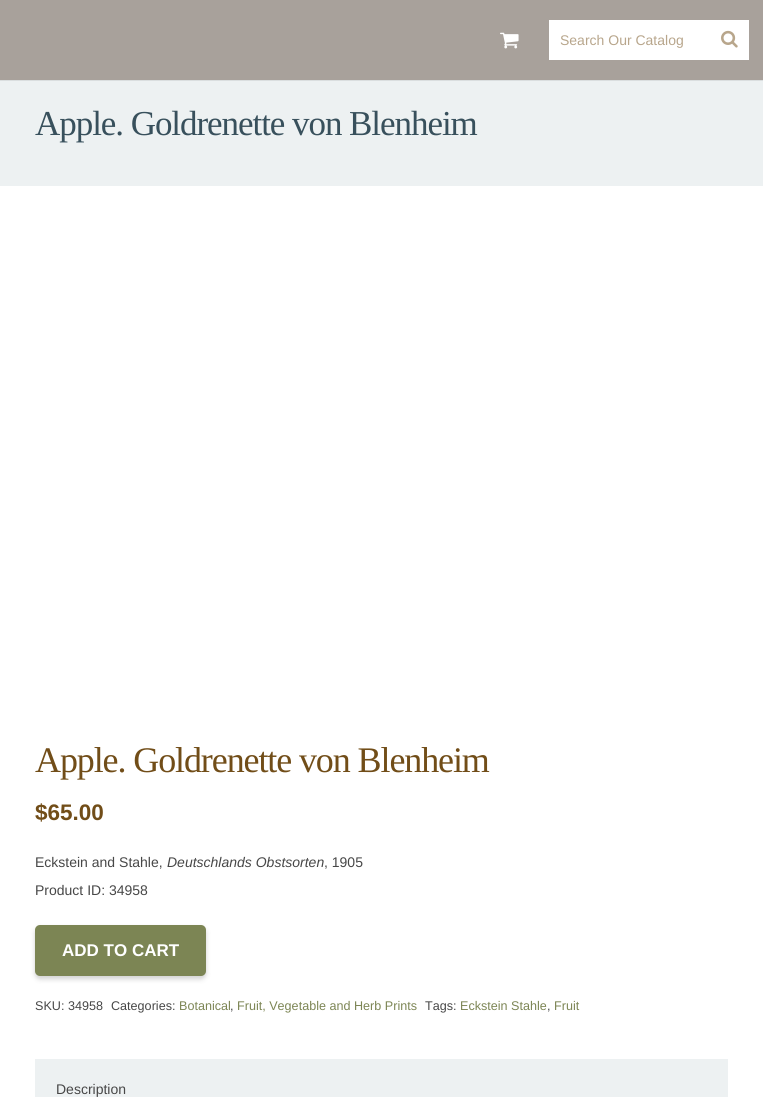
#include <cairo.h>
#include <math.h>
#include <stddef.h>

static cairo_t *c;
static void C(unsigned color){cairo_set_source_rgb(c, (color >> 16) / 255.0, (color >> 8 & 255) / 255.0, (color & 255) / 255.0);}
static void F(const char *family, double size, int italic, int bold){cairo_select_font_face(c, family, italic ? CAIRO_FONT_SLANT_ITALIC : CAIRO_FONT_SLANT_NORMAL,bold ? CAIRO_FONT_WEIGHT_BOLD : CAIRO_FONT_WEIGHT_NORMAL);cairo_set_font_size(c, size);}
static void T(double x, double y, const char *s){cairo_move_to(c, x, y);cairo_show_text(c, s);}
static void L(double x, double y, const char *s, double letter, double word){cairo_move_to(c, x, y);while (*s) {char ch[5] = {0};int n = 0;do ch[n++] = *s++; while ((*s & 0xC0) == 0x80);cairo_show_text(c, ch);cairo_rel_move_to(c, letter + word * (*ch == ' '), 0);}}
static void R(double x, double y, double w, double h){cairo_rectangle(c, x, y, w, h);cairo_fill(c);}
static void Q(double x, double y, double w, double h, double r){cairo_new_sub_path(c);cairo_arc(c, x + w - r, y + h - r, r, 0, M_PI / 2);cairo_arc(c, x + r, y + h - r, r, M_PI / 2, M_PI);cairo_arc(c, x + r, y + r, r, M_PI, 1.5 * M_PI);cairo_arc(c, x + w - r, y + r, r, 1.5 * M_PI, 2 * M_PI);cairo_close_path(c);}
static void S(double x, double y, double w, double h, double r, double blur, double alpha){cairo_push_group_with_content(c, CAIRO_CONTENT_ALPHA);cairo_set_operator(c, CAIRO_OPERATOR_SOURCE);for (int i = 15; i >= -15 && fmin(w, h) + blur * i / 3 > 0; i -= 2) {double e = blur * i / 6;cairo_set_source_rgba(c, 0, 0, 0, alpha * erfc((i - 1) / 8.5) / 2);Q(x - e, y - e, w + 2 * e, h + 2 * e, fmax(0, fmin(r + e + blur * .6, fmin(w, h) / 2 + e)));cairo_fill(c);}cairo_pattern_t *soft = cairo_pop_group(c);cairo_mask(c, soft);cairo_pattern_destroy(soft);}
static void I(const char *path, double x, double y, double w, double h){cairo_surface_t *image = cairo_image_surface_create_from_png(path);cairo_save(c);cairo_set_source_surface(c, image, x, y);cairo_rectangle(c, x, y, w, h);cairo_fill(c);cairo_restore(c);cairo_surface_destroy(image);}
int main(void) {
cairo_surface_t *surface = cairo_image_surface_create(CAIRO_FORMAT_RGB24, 763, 1097);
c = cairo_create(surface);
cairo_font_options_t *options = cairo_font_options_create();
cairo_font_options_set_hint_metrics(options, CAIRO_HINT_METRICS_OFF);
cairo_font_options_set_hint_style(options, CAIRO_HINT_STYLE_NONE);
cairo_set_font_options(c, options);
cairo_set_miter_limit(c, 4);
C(0xffffff);
cairo_paint(c);
C(0xdadedf);
R(0,80,763,1);
C(0xa8a19b);
R(0,0,763,80);
I("1.png",500,32,19,17);
C(0xffffff);
R(549,20,200,40);
F("Liberation Sans",14,0,0);
C(0xb8a68c);
T(560,45,"Search Our Catalog");
I("2.png",721,30,17,18);
C(0xedf1f2);
R(0,81,763,105);
F("Liberation Serif",35,0,0);
C(0x38505c);
L(35,135,"Apple. Goldrenette von Blenheim",-1.05,0);
F("Liberation Serif",36,0,0);
C(0x714d18);
L(35,772,"Apple. Goldrenette von Blenheim",-1.1,0);
F("Liberation Sans",22.5,0,1);
T(35,820,"$65.00");
F("Liberation Sans",14,0,0);
C(0x474747);
T(35,867,"Eckstein and Stahle,");
F("Liberation Sans",14,1,0);
T(167,867,"Deutschlands Obstsorten");
F("Liberation Sans",14,0,0);
T(324,867,", 1905");
T(35,895,"Product ID: 34958");
C(0x000000);
S(35,928,171,51,5,2.5,.18);
C(0x7c8554);
Q(35,925,171,51,5);
cairo_fill(c);
F("Liberation Sans",17,0,1);
C(0xffffff);
T(62,956,"ADD TO CART");
F("Liberation Sans",12.6,0,0);
C(0x474747);
T(35,1010,"SKU: 34958");
T(111,1010,"Categories:");
C(0x7c8554);
T(179,1010,"Botanical");
C(0x474747);
T(230,1010,",");
C(0x7c8554);
T(237,1010,"Fruit, Vegetable and Herb Prints");
C(0x474747);
T(425,1010,"Tags:");
C(0x7c8554);
T(460,1010,"Eckstein Stahle");
C(0x474747);
T(547,1010,",");
C(0x7c8554);
T(554,1010,"Fruit");
C(0xedf1f2);
R(35,1059,693,38);
F("Liberation Sans",14,0,0);
C(0x474747);
T(56,1094,"Description");
cairo_surface_write_to_png(surface, "o.png");
cairo_font_options_destroy(options);
cairo_destroy(c);
cairo_surface_destroy(surface);
return 0;
}
